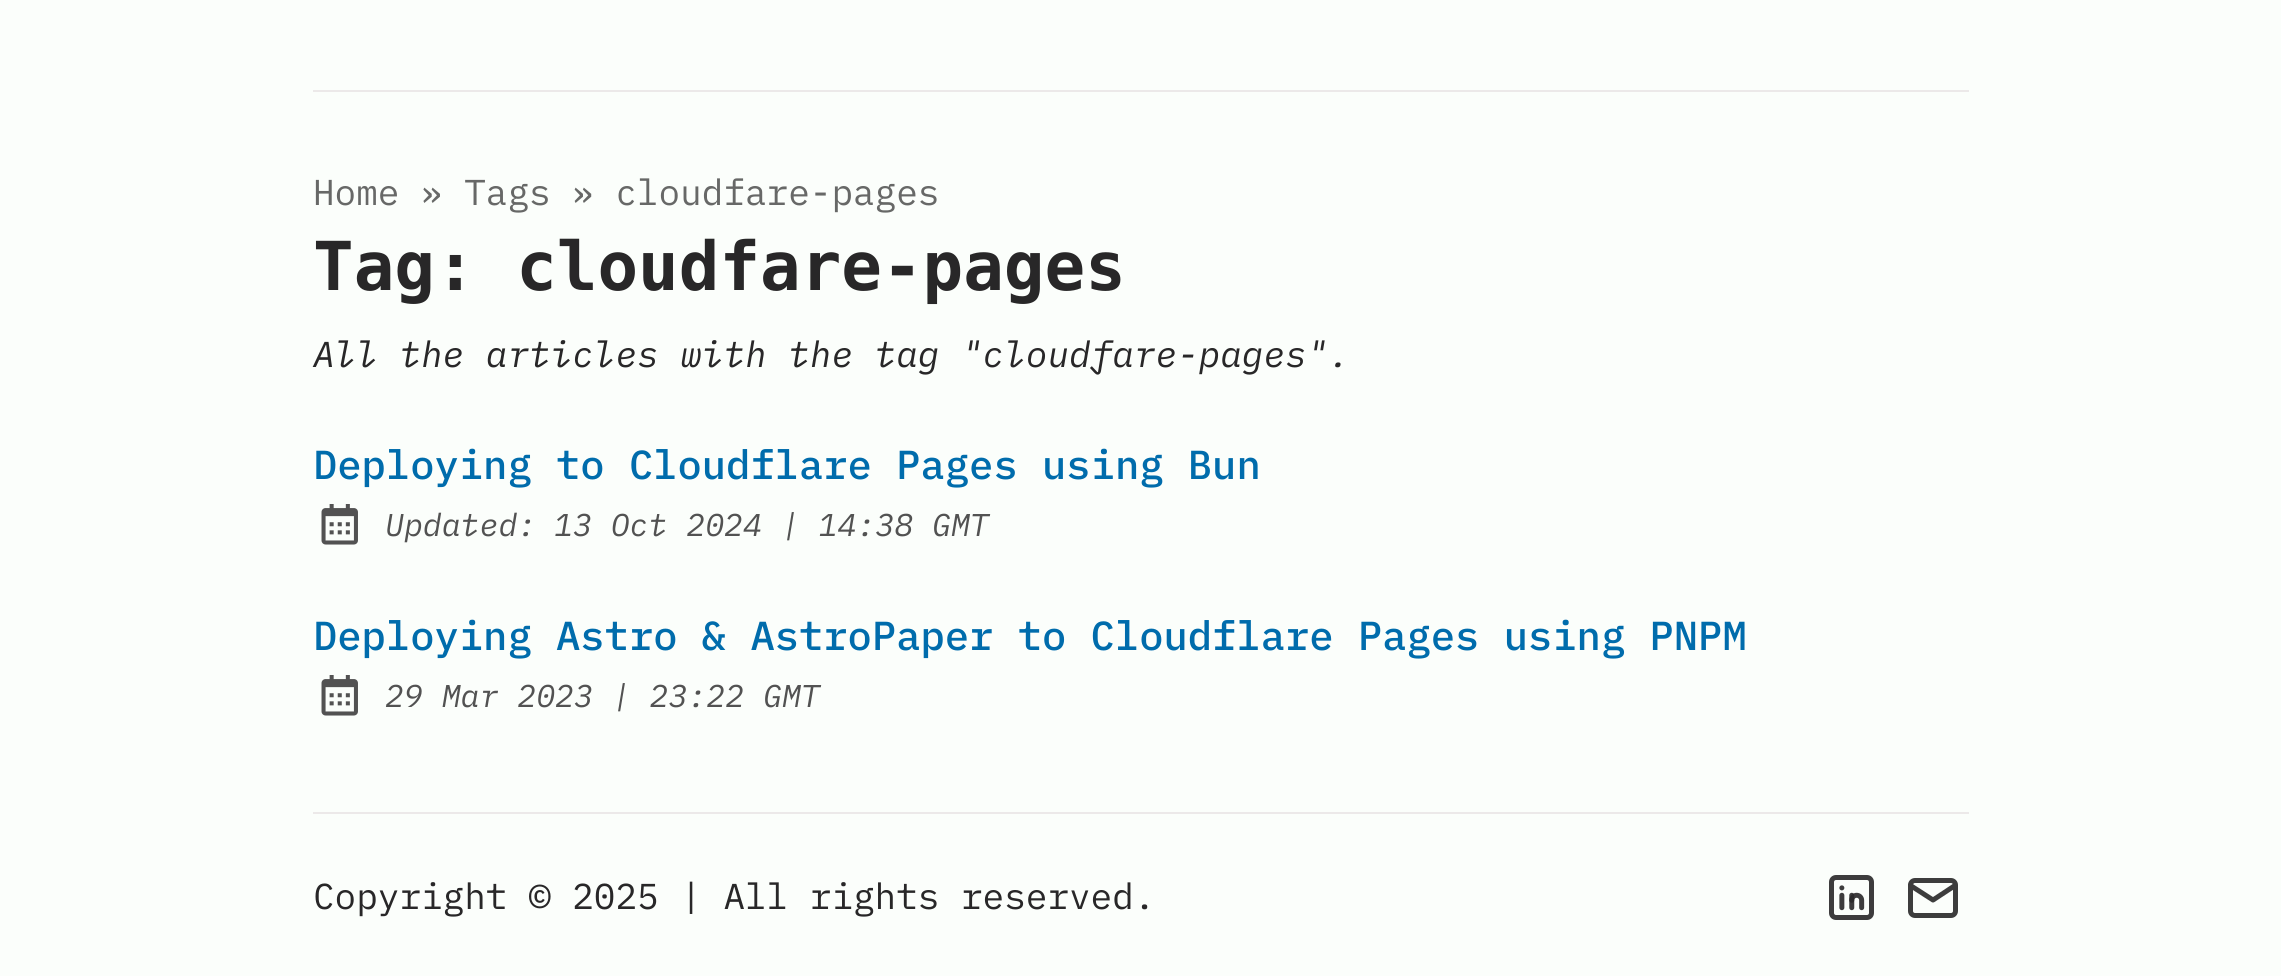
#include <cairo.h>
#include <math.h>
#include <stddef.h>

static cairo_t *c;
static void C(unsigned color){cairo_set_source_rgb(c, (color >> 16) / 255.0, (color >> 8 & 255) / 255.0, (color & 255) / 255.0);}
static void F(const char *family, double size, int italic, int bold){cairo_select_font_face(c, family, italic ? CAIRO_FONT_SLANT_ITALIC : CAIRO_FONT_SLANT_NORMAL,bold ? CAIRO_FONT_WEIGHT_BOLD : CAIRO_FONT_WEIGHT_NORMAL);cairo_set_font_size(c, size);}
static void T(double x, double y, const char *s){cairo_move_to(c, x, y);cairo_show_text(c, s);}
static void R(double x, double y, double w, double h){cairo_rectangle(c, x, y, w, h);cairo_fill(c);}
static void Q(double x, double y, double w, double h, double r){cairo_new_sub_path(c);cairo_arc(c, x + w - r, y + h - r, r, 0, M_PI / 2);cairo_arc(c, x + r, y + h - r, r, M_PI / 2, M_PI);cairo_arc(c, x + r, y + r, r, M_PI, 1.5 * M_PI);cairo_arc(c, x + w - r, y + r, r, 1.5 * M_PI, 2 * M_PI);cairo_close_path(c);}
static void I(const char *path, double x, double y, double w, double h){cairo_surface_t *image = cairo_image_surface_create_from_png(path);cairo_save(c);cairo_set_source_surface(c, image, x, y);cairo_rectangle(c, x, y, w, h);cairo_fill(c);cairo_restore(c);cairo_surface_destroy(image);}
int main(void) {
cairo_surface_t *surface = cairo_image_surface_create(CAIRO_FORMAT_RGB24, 2281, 976);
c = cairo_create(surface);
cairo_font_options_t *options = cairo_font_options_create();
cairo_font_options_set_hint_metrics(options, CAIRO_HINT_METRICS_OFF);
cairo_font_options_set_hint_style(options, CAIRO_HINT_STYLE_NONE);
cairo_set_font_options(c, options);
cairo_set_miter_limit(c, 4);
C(0xfbfefb);
cairo_paint(c);
C(0xece9e9);
R(313,90,1656,2);
F("IBM Plex Mono",36,0,0);
C(0x676867);
T(313,205,"Home » Tags » cloudfare-pages");
F("DejaVu Sans Mono",67.5,0,1);
C(0x282728);
T(313,290,"Tag: cloudfare-pages");
F("IBM Plex Mono",36,1,0);
T(313,367,"All the articles with the tag \"cloudfare-pages\".");
F("IBM Plex Mono Medium",40.5,0,0);
C(0x006cac);
T(313,479,"Deploying to Cloudflare Pages using Bun");
I("1.png",321,504,37,41);
F("IBM Plex Mono",31.5,1,0);
C(0x525252);
T(385,536,"Updated:");
T(554,536,"13 Oct 2024 | 14:38 GMT");
F("IBM Plex Mono Medium",40.5,0,0);
C(0x006cac);
T(313,650,"Deploying Astro & AstroPaper to Cloudflare Pages using PNPM");
I("1.png",321,675,37,41);
F("IBM Plex Mono",31.5,1,0);
C(0x525252);
T(385,707,"29 Mar 2023 | 23:22 GMT");
C(0xece9e9);
R(313,812,1656,2);
F("IBM Plex Mono",36,0,0);
C(0x282728);
T(313,909,"Copyright © 2025 | All rights reserved.");
I("2.png",1829,875,45,45);
Q(1910.5,880.5,45,35,4.5);
C(0x3d3d3d);
cairo_set_line_width(c,5);
cairo_stroke(c);
cairo_new_path(c);
cairo_move_to(c,1910.5,885.5);
cairo_line_to(c,1933,900);
cairo_line_to(c,1955,885.5);
cairo_set_line_cap(c,CAIRO_LINE_CAP_ROUND);
cairo_set_line_join(c,CAIRO_LINE_JOIN_ROUND);
cairo_stroke(c);
cairo_surface_write_to_png(surface, "o.png");
cairo_font_options_destroy(options);
cairo_destroy(c);
cairo_surface_destroy(surface);
return 0;
}
